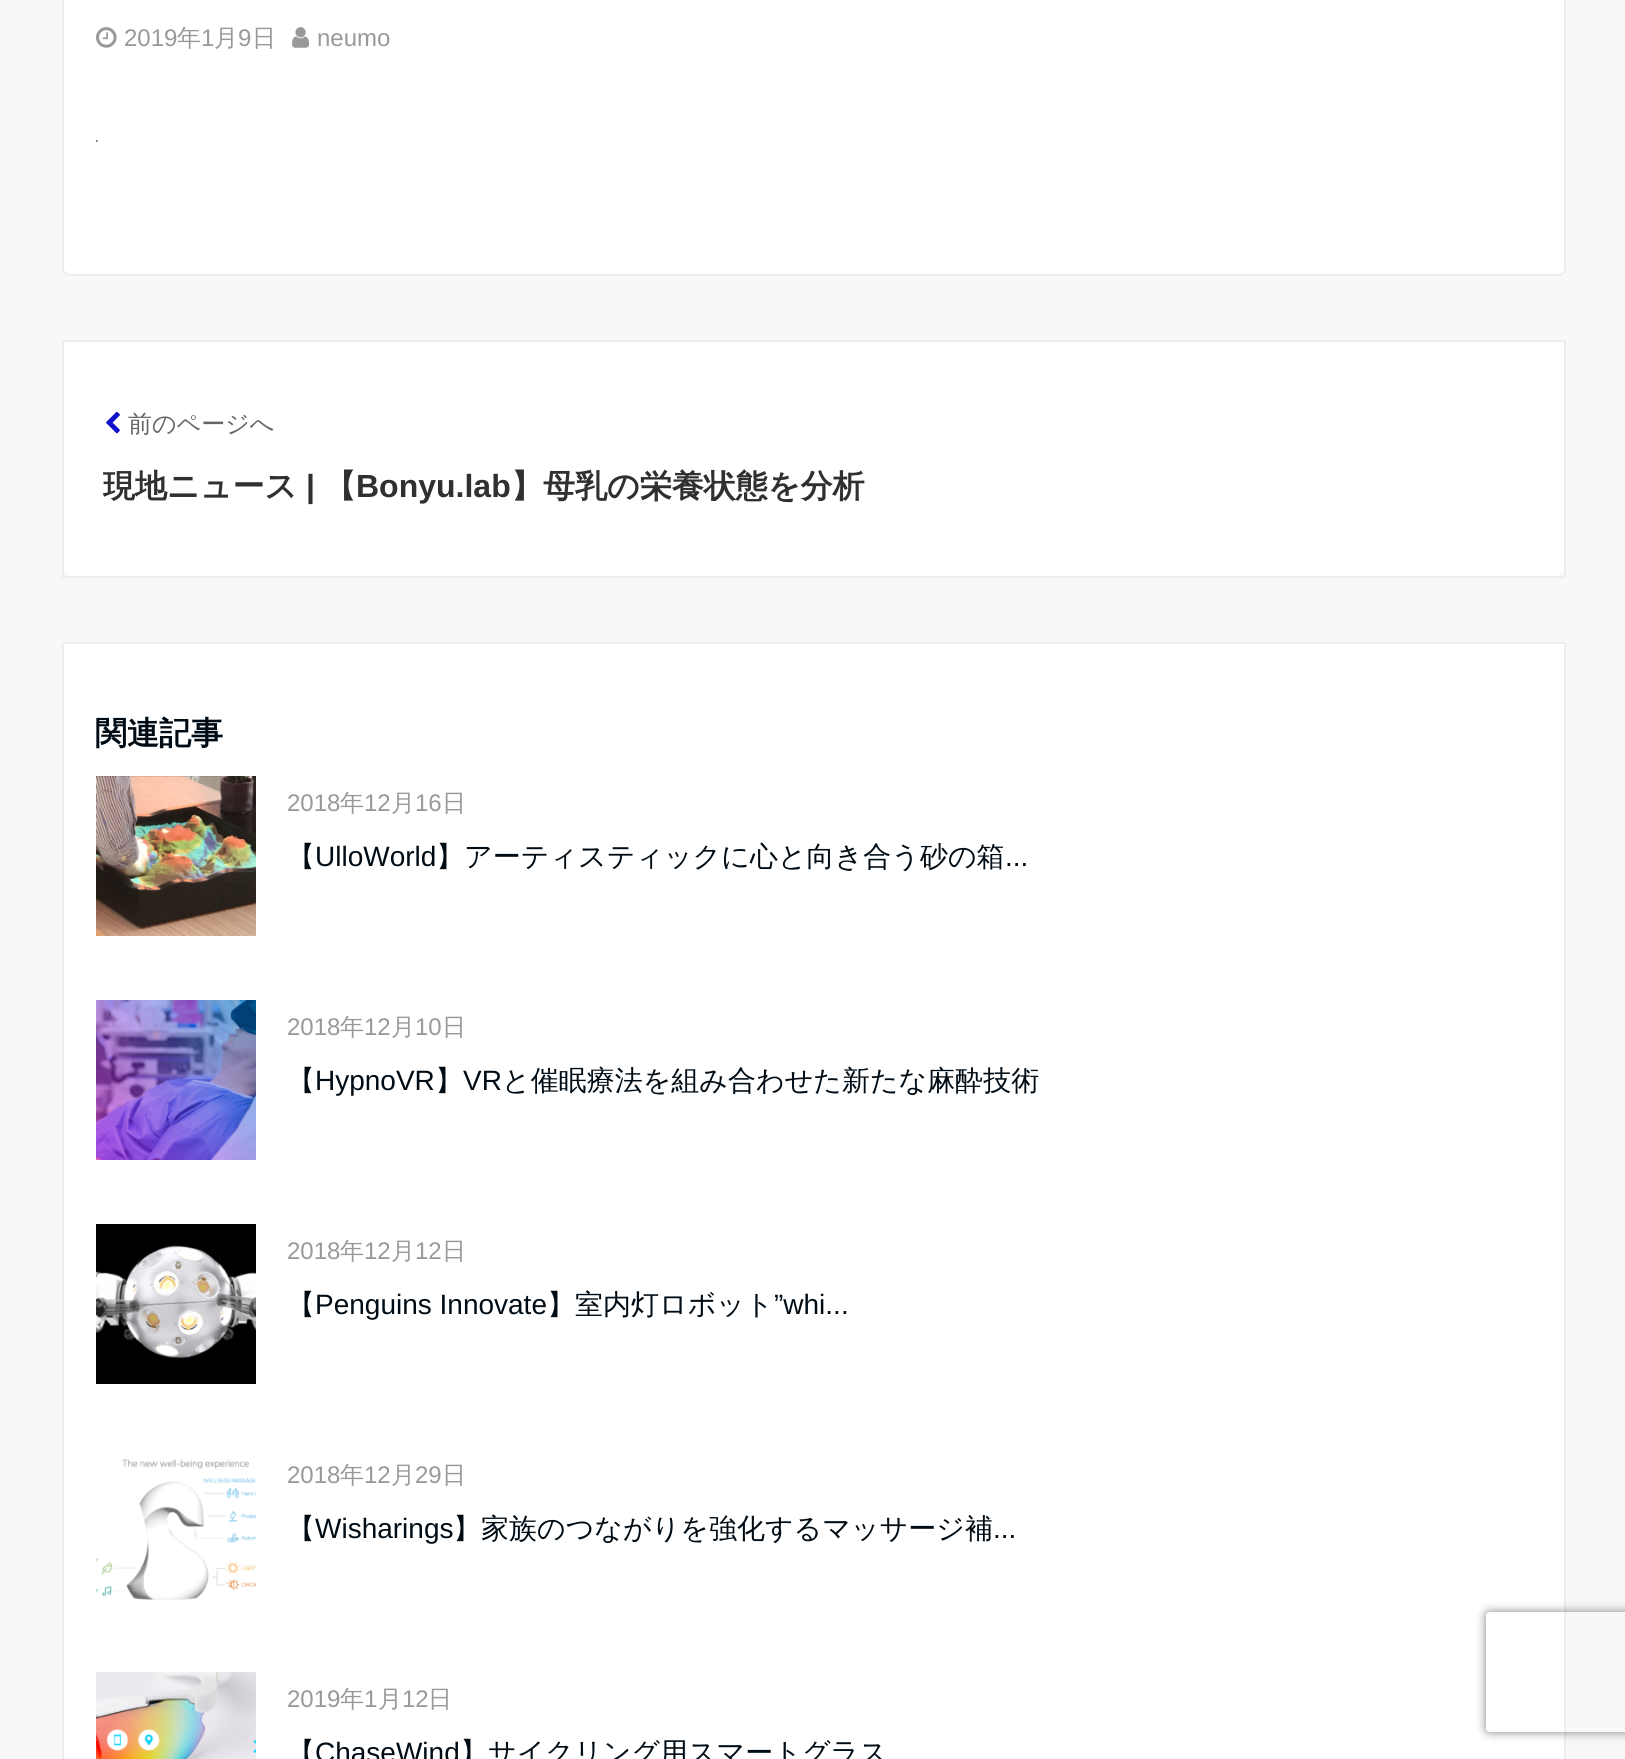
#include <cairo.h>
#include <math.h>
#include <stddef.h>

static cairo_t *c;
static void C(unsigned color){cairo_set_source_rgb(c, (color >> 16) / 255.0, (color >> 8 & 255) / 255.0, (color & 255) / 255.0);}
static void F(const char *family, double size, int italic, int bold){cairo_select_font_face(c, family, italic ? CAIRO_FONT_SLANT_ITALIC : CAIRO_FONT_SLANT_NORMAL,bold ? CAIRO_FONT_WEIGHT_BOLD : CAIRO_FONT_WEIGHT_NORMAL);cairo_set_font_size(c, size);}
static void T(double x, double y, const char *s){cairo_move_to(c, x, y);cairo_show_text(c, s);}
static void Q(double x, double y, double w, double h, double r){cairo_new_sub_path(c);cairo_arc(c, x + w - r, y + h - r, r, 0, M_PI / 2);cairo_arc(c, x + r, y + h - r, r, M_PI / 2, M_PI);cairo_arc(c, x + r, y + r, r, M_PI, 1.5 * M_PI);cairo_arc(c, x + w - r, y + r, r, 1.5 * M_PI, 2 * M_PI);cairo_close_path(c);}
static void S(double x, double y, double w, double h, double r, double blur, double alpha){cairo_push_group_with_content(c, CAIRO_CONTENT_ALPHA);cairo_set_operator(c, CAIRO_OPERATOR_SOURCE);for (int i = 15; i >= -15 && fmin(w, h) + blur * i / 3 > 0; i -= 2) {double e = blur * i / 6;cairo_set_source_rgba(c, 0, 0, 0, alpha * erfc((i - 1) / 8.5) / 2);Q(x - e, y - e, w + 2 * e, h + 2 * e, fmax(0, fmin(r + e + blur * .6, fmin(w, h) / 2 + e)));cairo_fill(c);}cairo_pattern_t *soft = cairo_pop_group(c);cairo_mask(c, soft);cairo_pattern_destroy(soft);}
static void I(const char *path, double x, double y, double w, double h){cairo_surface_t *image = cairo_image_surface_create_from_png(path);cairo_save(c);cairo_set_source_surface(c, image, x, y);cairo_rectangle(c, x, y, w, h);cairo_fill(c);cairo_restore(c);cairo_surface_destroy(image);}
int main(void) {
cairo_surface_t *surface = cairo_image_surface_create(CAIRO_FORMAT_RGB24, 1625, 1759);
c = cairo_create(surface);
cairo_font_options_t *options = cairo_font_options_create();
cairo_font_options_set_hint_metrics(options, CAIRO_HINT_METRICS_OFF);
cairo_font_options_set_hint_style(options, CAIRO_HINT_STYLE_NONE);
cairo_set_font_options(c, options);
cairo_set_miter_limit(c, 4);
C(0xf8f8f8);
cairo_paint(c);
C(0xffffff);
cairo_new_path(c);
cairo_move_to(c,63,-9);
cairo_line_to(c,1565,-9);
cairo_line_to(c,1565,268);
cairo_curve_to(c,1565,272,1562,275,1558,275);
cairo_line_to(c,70,275);
cairo_curve_to(c,66,275,63,272,63,268);
cairo_close_path(c);
cairo_fill_preserve(c);
C(0xebedf0);
cairo_stroke(c);
I("1.png",96,27,21,21);
F("Liberation Sans",24,0,0);
C(0x999999);
T(124,46,"2019");
F("WenQuanYi Zen Hei Medium",24,0,0);
T(177,46,"年");
F("Liberation Sans",24,0,0);
T(201,46,"1");
F("WenQuanYi Zen Hei Medium",24,0,0);
T(214,46,"月");
F("Liberation Sans",24,0,0);
T(238,46,"9");
F("WenQuanYi Zen Hei Medium",24,0,0);
T(252,46,"日");
I("2.png",292,27,18,21);
F("Liberation Sans",24,0,0);
T(317,46,"neumo");
I("3.png",96,140,2,2);
cairo_rectangle(c,63,341,1502,236);
C(0xebedf0);
cairo_stroke(c);
C(0xffffff);
cairo_new_path(c);
cairo_move_to(c,64,342);
cairo_line_to(c,1564,342);
cairo_line_to(c,1564,568);
cairo_curve_to(c,1564,572.5,1560.5,576,1556,576);
cairo_line_to(c,72,576);
cairo_curve_to(c,67.5,576,64,572.5,64,568);
cairo_close_path(c);
cairo_fill(c);
I("4.png",106,411,14,23);
F("WenQuanYi Zen Hei Medium",24,0,0);
C(0x666666);
T(128,432,"前のページへ");
F("WenQuanYi Zen Hei",32,0,1);
C(0x303030);
T(103,497,"現地ニュース");
F("Liberation Sans",32,0,1);
T(306,497,"|");
F("WenQuanYi Zen Hei",32,0,1);
T(324,497,"【");
F("Liberation Sans",32,0,1);
T(356,497,"Bonyu.lab");
F("WenQuanYi Zen Hei",32,0,1);
T(511,497,"】母乳の栄養状態を分析");
C(0xffffff);
cairo_rectangle(c,63,643,1502,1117);
cairo_fill_preserve(c);
C(0xebedf0);
cairo_stroke(c);
C(0x000c15);
T(95,744,"関連記事");
I("5.png",96,776,160,160);
F("Liberation Sans",24,0,0);
C(0x999999);
T(287,811,"2018");
F("WenQuanYi Zen Hei Medium",24,0,0);
T(340,811,"年");
F("Liberation Sans",24,0,0);
T(364,811,"12");
F("WenQuanYi Zen Hei Medium",24,0,0);
T(391,811,"月");
F("Liberation Sans",24,0,0);
T(415,811,"16");
F("WenQuanYi Zen Hei Medium",24,0,0);
T(442,811,"日");
F("WenQuanYi Zen Hei Medium",28,0,0);
C(0x000c15);
T(287,866,"【");
F("Liberation Sans",28,0,0);
T(315,866,"UlloWorld");
F("WenQuanYi Zen Hei Medium",28,0,0);
T(436,866,"】アーティスティックに心と向き合う砂の箱");
F("Liberation Sans",28,0,0);
T(1005,866,"...");
I("6.png",96,1000,160,160);
F("Liberation Sans",24,0,0);
C(0x999999);
T(287,1035,"2018");
F("WenQuanYi Zen Hei Medium",24,0,0);
T(340,1035,"年");
F("Liberation Sans",24,0,0);
T(364,1035,"12");
F("WenQuanYi Zen Hei Medium",24,0,0);
T(391,1035,"月");
F("Liberation Sans",24,0,0);
T(415,1035,"10");
F("WenQuanYi Zen Hei Medium",24,0,0);
T(442,1035,"日");
F("WenQuanYi Zen Hei Medium",28,0,0);
C(0x000c15);
T(287,1090,"【");
F("Liberation Sans",28,0,0);
T(315,1090,"HypnoVR");
F("WenQuanYi Zen Hei Medium",28,0,0);
T(435,1090,"】");
F("Liberation Sans",28,0,0);
T(463,1090,"VR");
F("WenQuanYi Zen Hei Medium",28,0,0);
T(502,1090,"と催眠療法を組み合わせた新たな麻酔技術");
I("7.png",96,1224,160,160);
F("Liberation Sans",24,0,0);
C(0x999999);
T(287,1259,"2018");
F("WenQuanYi Zen Hei Medium",24,0,0);
T(340,1259,"年");
F("Liberation Sans",24,0,0);
T(364,1259,"12");
F("WenQuanYi Zen Hei Medium",24,0,0);
T(391,1259,"月");
F("Liberation Sans",24,0,0);
T(415,1259,"12");
F("WenQuanYi Zen Hei Medium",24,0,0);
T(442,1259,"日");
F("WenQuanYi Zen Hei Medium",28,0,0);
C(0x000c15);
T(287,1314,"【");
F("Liberation Sans",28,0,0);
T(315,1314,"Penguins Innovate");
F("WenQuanYi Zen Hei Medium",28,0,0);
T(547,1314,"】室内灯ロボット");
F("Liberation Sans",28,0,0);
T(774,1314,"”whi...");
I("8.png",96,1459,160,141);
F("Liberation Sans",24,0,0);
C(0x999999);
T(287,1483,"2018");
F("WenQuanYi Zen Hei Medium",24,0,0);
T(340,1483,"年");
F("Liberation Sans",24,0,0);
T(364,1483,"12");
F("WenQuanYi Zen Hei Medium",24,0,0);
T(391,1483,"月");
F("Liberation Sans",24,0,0);
T(415,1483,"29");
F("WenQuanYi Zen Hei Medium",24,0,0);
T(442,1483,"日");
F("WenQuanYi Zen Hei Medium",28,0,0);
C(0x000c15);
T(287,1538,"【");
F("Liberation Sans",28,0,0);
T(315,1538,"Wisharings");
F("WenQuanYi Zen Hei Medium",28,0,0);
T(453,1538,"】家族のつながりを強化するマッサージ補");
F("Liberation Sans",28,0,0);
T(993,1538,"...");
I("9.png",96,1672,160,87);
F("Liberation Sans",24,0,0);
C(0x999999);
T(287,1707,"2019");
F("WenQuanYi Zen Hei Medium",24,0,0);
T(340,1707,"年");
F("Liberation Sans",24,0,0);
T(364,1707,"1");
F("WenQuanYi Zen Hei Medium",24,0,0);
T(378,1707,"月");
F("Liberation Sans",24,0,0);
T(402,1707,"12");
F("WenQuanYi Zen Hei Medium",24,0,0);
T(428,1707,"日");
F("WenQuanYi Zen Hei Medium",28,0,0);
C(0x000c15);
T(287,1762,"【");
F("Liberation Sans",28,0,0);
T(315,1762,"ChaseWind");
F("WenQuanYi Zen Hei Medium",28,0,0);
T(460,1762,"】サイクリング用スマートグラス");
cairo_save(c);
cairo_set_fill_rule(c,CAIRO_FILL_RULE_EVEN_ODD);
cairo_new_path(c);
cairo_move_to(c,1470,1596);
cairo_line_to(c,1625,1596);
cairo_line_to(c,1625,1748);
cairo_line_to(c,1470,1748);
cairo_close_path(c);
cairo_move_to(c,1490,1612);
cairo_line_to(c,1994,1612);
cairo_curve_to(c,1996,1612,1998,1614,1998,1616);
cairo_line_to(c,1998,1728);
cairo_curve_to(c,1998,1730,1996,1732,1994,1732);
cairo_line_to(c,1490,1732);
cairo_curve_to(c,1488,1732,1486,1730,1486,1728);
cairo_line_to(c,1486,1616);
cairo_curve_to(c,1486,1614,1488,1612,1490,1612);
cairo_close_path(c);
cairo_clip(c);
C(0x808080);
S(1486,1612,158,120,4,5,1);
cairo_restore(c);
cairo_surface_write_to_png(surface, "o.png");
cairo_font_options_destroy(options);
cairo_destroy(c);
cairo_surface_destroy(surface);
return 0;
}
